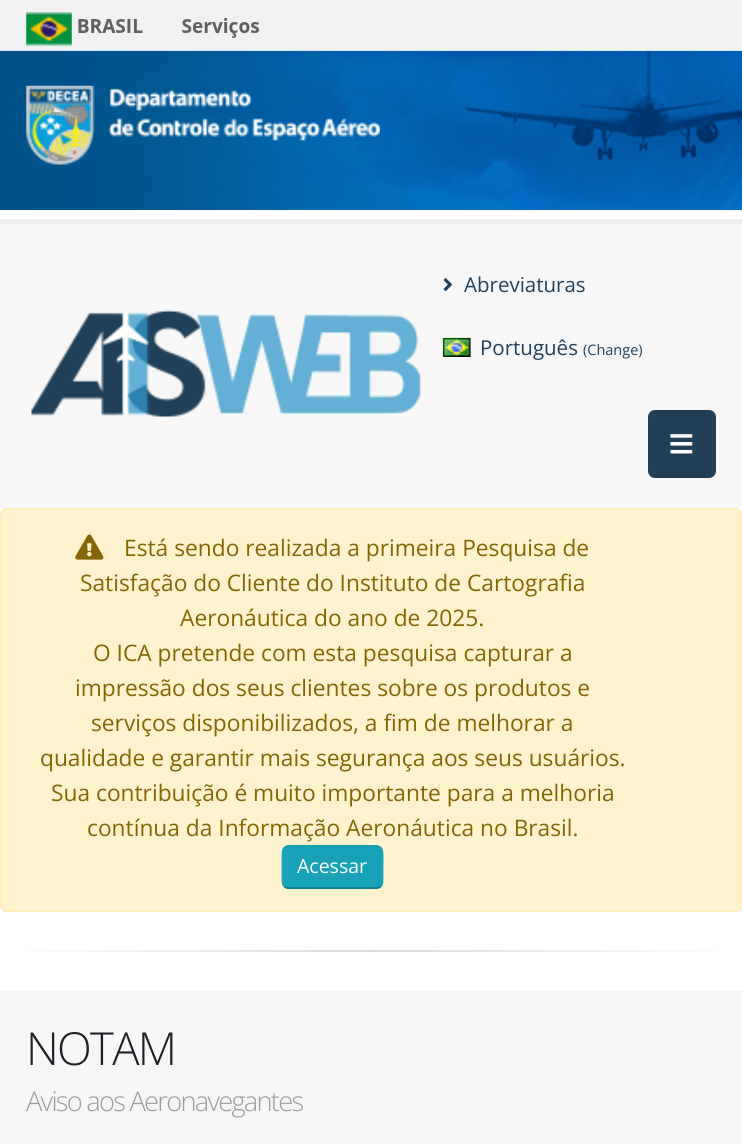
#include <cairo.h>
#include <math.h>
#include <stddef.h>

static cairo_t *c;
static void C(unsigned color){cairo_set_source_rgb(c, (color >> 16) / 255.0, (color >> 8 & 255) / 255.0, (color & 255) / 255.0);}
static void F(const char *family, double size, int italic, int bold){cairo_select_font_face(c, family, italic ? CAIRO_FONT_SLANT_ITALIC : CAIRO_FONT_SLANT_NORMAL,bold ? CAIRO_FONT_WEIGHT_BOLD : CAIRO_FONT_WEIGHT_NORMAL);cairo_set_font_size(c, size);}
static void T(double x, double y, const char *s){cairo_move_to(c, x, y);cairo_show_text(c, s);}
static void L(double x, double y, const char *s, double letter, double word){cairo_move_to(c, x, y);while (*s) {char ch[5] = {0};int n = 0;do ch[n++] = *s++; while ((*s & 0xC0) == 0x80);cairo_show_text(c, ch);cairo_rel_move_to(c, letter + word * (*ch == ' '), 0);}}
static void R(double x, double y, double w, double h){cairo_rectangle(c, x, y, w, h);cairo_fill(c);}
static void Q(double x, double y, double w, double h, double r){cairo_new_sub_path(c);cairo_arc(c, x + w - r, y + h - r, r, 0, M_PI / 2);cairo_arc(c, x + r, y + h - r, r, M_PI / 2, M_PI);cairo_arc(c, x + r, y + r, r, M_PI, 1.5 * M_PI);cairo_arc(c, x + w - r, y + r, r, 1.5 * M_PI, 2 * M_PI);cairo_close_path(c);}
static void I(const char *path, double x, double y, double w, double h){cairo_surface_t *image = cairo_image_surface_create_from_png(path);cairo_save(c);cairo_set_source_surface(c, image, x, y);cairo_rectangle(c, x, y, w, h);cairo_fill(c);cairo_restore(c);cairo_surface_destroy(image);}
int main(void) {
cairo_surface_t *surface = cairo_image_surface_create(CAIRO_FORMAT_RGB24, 742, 1144);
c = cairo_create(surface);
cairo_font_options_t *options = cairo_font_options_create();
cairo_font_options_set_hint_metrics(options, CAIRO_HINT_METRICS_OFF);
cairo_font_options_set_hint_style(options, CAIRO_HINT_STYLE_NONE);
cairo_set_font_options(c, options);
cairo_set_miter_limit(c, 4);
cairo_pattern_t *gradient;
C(0xffffff);
cairo_paint(c);
I("1.png",0,0,742,210);
C(0xf7f7f7);
R(0,224,742,284);
C(0xededed);
R(0,219,742,5);
I("2.png",31,309,390,109);
I("3.png",443,278,9,13);
F("Open Sans",20.5,0,0);
C(0x21415b);
T(464,292,"Abreviaturas");
I("4.png",442,337,29,20);
T(480,355,"Português");
F("Open Sans",14.5,0,0);
T(583,355,"(Change)");
Q(648,410,68,68,7);
cairo_fill(c);
I("5.png",670,434,23,20);
C(0xfff3cd);
Q(1,509,740,402,6);
cairo_fill_preserve(c);
C(0xffeeba);
cairo_stroke(c);
I("6.png",75,534,29,26);
F("Open Sans",22.75,0,0);
C(0x856404);
T(124,556,"Está sendo realizada a primeira Pesquisa de");
T(80,591,"Satisfação do Cliente do Instituto de Cartografia");
T(180,626,"Aeronáutica do ano de 2025.");
T(93,661,"O ICA pretende com esta pesquisa capturar a");
T(75,696,"impressão dos seus clientes sobre os produtos e");
T(91,731,"serviços disponibilizados, a fim de melhorar a");
T(40,766,"qualidade e garantir mais segurança aos seus usuários.");
T(51,801,"Sua contribuição é muito importante para a melhoria");
T(87,836,"contínua da Informação Aeronáutica no Brasil.");
C(0x17a2b8);
Q(282,845,101,44,7);
cairo_fill(c);
cairo_new_path(c);
cairo_move_to(c,380.5,886.5);
cairo_curve_to(c,379.5,887.5,378,888,376,888);
cairo_line_to(c,289,888);
cairo_curve_to(c,287,888,285.5,887.5,284.5,886.5);
C(0x117a8b);
cairo_set_line_width(c,1.8);
cairo_stroke(c);
cairo_new_path(c);
cairo_move_to(c,284.5,886.5);
cairo_curve_to(c,282,884,282.5,880,282.5,877);
cairo_line_to(c,282.5,867);
cairo_curve_to(c,282.5,844.5,280,846,303.5,846);
cairo_line_to(c,361.5,846);
cairo_curve_to(c,385,846,382.5,844.5,382.5,867);
cairo_line_to(c,382.5,877);
cairo_curve_to(c,382.5,880,383,884,380.5,886.5);
C(0x17a2b8);
cairo_stroke(c);
F("Open Sans",19.5,0,0);
C(0xffffff);
T(297,873,"Acessar");
gradient = cairo_pattern_create_linear(742,951,0,951);
cairo_pattern_add_color_stop_rgba(gradient,0,1,1,1,1);
cairo_pattern_add_color_stop_rgba(gradient,.5,0.859,0.859,0.859,1);
cairo_pattern_add_color_stop_rgba(gradient,1,1,1,1,1);
cairo_set_source(c,gradient);
cairo_pattern_destroy(gradient);
R(26,950,690,2);
C(0xf7f7f7);
R(0,991,742,153);
C(0xfbfbfb);
R(0,990,742,1);
F("Open Sans Light",45.5,0,0);
C(0x1d2127);
L(26,1065,"NOTAM",-1.75,0);
F("Open Sans Light",27.25,0,0);
C(0x999da3);
L(26,1111,"Aviso aos Aeronavegantes",-1.75,0);
cairo_surface_write_to_png(surface, "o.png");
cairo_font_options_destroy(options);
cairo_destroy(c);
cairo_surface_destroy(surface);
return 0;
}
